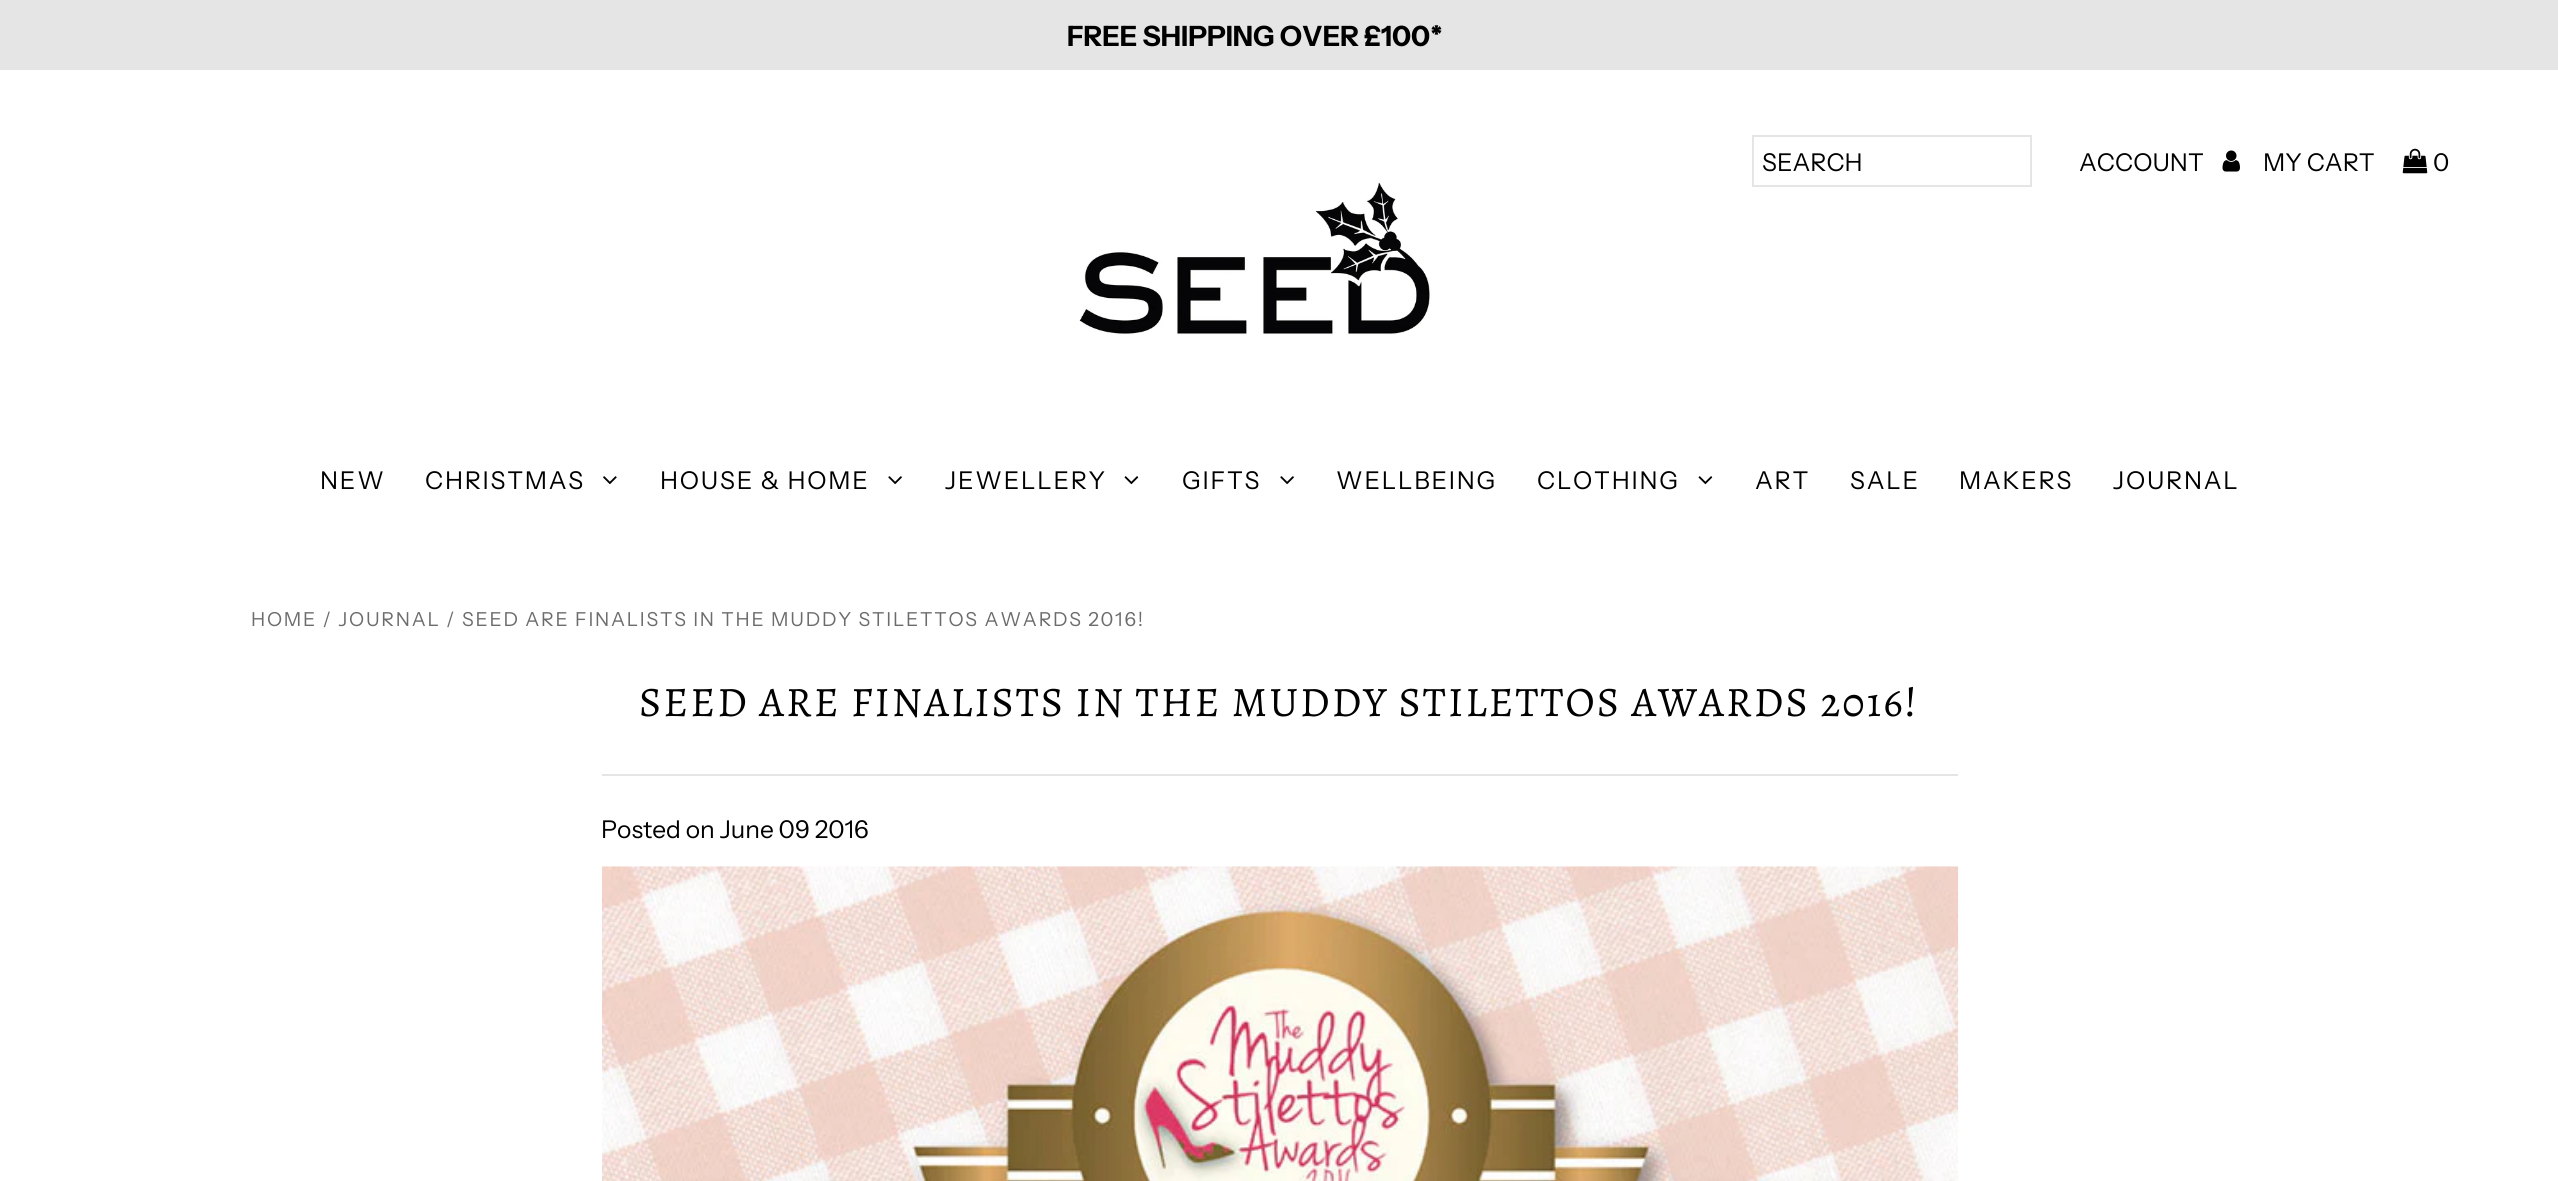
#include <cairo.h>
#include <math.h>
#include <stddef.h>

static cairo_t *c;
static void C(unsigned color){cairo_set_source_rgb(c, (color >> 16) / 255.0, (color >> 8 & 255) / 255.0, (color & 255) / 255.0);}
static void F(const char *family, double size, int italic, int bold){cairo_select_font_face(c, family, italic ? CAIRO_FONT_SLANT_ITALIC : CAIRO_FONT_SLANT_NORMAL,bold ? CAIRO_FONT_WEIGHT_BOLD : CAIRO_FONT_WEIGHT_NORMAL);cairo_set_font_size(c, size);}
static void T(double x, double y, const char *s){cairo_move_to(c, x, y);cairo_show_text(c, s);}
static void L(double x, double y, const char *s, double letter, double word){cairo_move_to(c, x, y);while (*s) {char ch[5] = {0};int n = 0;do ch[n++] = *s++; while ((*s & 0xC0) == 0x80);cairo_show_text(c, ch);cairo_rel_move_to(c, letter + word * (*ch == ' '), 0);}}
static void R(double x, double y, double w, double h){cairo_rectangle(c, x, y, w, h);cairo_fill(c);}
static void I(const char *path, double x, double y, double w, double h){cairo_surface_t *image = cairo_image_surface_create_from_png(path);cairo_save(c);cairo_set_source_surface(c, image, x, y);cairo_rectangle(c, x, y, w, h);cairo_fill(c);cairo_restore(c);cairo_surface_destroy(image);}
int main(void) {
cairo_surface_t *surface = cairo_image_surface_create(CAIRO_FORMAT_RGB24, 2558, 1181);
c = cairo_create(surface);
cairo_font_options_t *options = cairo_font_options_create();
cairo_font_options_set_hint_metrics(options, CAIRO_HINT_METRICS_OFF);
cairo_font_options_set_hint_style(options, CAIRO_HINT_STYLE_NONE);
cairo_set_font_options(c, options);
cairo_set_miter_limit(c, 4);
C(0xffffff);
cairo_paint(c);
C(0xe5e5e5);
R(0,0,2558,70);
F("Instrument Sans",28,0,1);
C(0x000000);
T(1067,46,"FREE SHIPPING OVER £100*");
cairo_rectangle(c,1753,136,278,50);
C(0xe5e5e5);
cairo_stroke(c);
F("Instrument Sans",24.5,0,0);
C(0x000000);
T(1762,171,"SEARCH");
T(2079,171,"ACCOUNT");
I("1.png",2222,150,18,22);
T(2263,171,"MY CART");
I("2.png",2402,148,26,26);
T(2433,171,"0");
I("3.png",1079,182,353,153);
L(320,489,"NEW",1.75,0);
L(425,489,"CHRISTMAS",1.75,0);
I("4.png",603,476,14,9);
L(660,489,"HOUSE & HOME",1.75,0);
I("5.png",888,476,14,9);
L(945,489,"JEWELLERY",1.75,0);
I("6.png",1124,476,15,9);
L(1182,489,"GIFTS",1.75,0);
I("5.png",1280,476,14,9);
L(1336,489,"WELLBEING",1.75,0);
L(1537,489,"CLOTHING",1.75,0);
I("6.png",1698,476,15,9);
L(1755,489,"ART",1.75,0);
L(1850,489,"SALE",1.75,0);
L(1959,489,"MAKERS",1.75,0);
L(2113,489,"JOURNAL",1.75,0);
F("Instrument Sans",19.25,0,0);
C(0x6c6c6c);
L(251,626,"HOME / JOURNAL / SEED ARE FINALISTS IN THE MUDDY STILETTOS AWARDS 2016!",1.75,0);
C(0xe5e5e5);
R(602,774,1356,2);
F("Alegreya",42,0,0);
C(0x000000);
L(639,716,"SEED ARE FINALISTS IN THE MUDDY STILETTOS AWARDS 2016!",2.1,0);
F("Instrument Sans",24.5,0,0);
T(601,838,"Posted on June 09 2016");
I("7.png",602,866,1357,315);
cairo_surface_write_to_png(surface, "o.png");
cairo_font_options_destroy(options);
cairo_destroy(c);
cairo_surface_destroy(surface);
return 0;
}
